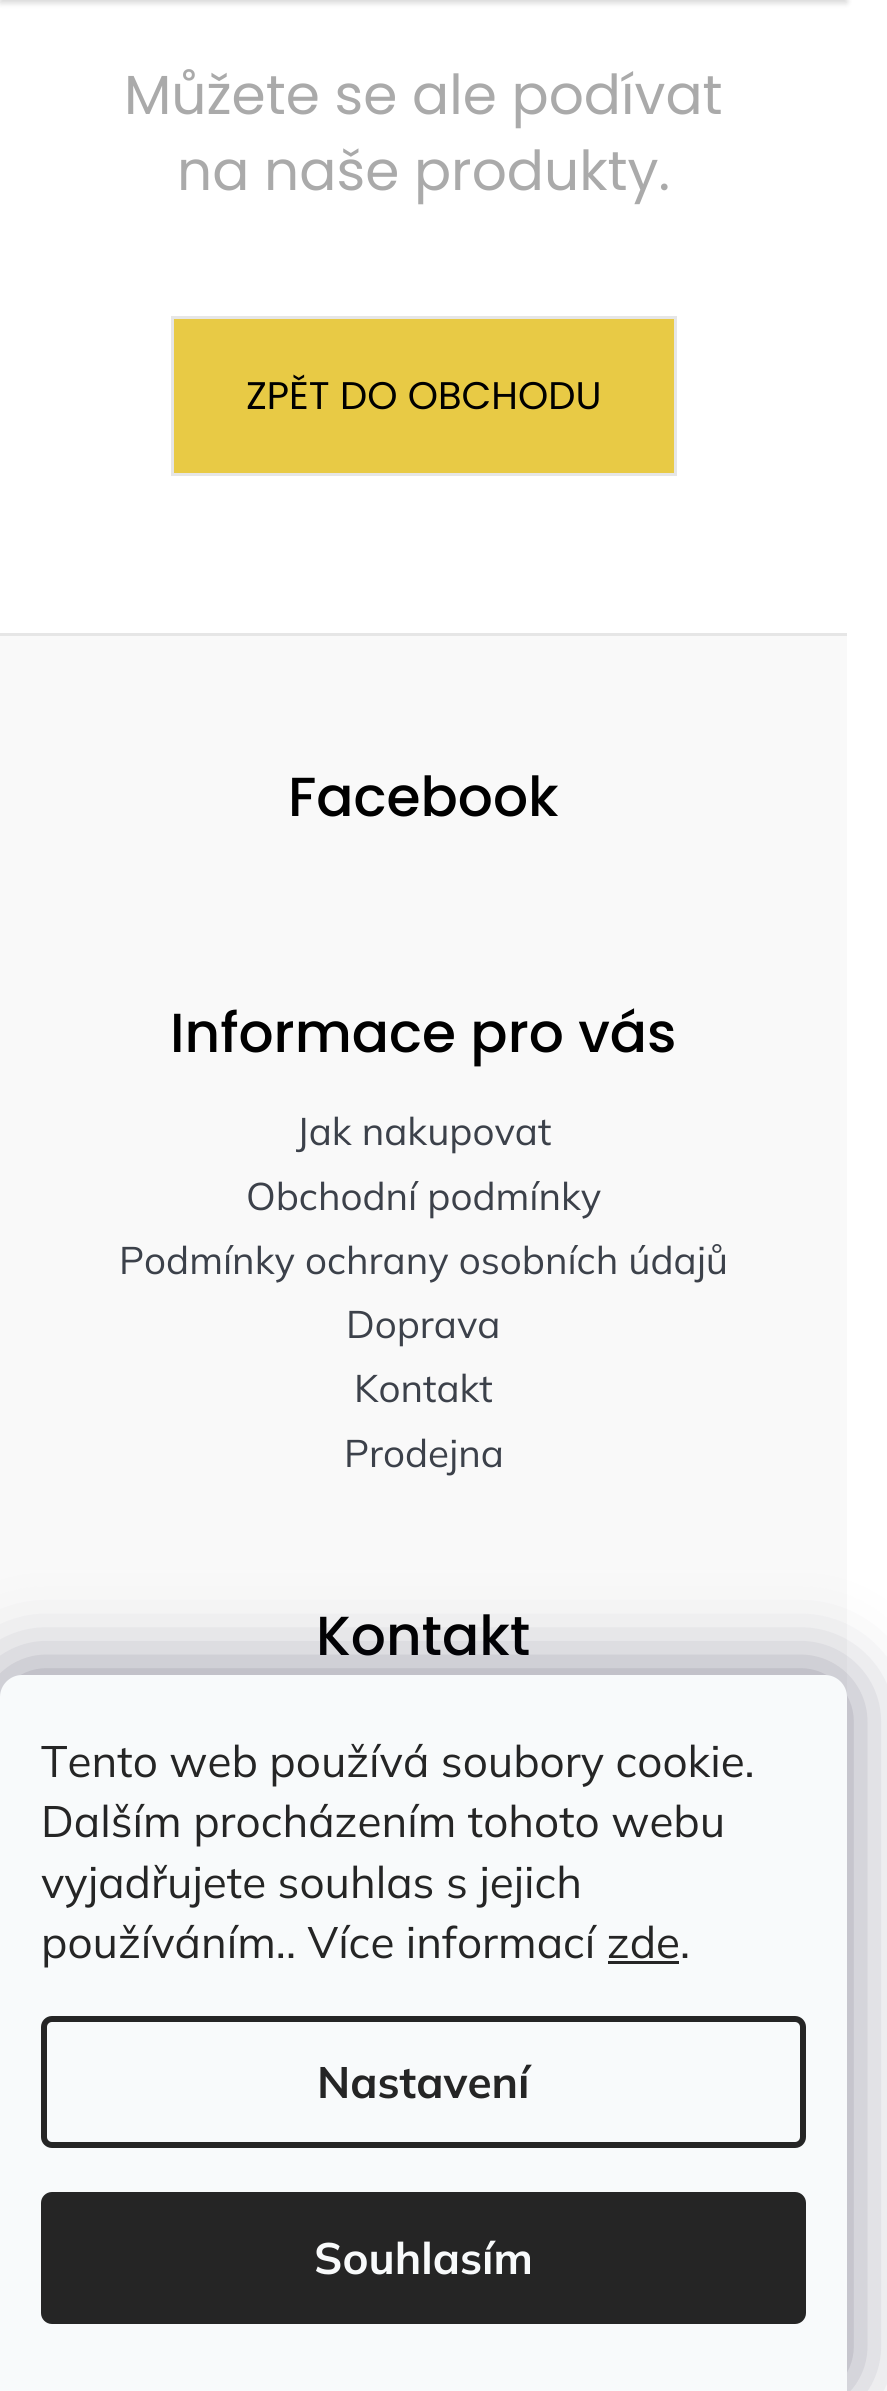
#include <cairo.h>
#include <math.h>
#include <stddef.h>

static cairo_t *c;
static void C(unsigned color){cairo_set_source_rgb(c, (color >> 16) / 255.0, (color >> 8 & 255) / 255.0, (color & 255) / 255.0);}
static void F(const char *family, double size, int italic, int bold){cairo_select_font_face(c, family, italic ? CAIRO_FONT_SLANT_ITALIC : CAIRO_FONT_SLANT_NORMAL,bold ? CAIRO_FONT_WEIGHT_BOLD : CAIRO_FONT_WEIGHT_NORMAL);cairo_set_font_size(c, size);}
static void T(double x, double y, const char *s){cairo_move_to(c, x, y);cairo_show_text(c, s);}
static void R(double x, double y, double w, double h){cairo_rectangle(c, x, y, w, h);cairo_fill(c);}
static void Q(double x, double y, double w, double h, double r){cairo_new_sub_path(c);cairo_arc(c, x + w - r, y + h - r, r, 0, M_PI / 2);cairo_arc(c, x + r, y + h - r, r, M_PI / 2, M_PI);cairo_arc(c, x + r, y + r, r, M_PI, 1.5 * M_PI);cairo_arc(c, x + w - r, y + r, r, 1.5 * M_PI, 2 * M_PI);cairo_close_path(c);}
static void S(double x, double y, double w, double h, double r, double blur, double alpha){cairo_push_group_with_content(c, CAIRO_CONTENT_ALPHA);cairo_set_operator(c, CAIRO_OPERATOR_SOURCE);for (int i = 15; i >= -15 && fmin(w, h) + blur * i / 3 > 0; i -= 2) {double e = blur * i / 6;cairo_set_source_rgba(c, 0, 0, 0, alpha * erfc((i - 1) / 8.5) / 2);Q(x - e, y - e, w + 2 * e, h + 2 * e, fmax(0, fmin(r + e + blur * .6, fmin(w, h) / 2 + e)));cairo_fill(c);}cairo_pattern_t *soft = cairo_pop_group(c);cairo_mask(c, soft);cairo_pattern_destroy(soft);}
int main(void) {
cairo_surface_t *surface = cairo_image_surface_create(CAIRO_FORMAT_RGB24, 887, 2391);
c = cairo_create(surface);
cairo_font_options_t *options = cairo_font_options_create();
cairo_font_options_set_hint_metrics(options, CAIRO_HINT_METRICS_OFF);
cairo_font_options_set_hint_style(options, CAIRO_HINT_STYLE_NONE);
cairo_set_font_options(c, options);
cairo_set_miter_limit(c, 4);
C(0xffffff);
cairo_paint(c);
C(0x000000);
S(0,-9,847,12,0,3,.16);
F("Poppins",55,0,0);
C(0xaaaaaa);
T(124,114,"Můžete se ale podívat");
T(177,190,"na naše produkty.");
C(0xe8ca45);
cairo_rectangle(c,172.5,317.5,503,157);
cairo_fill_preserve(c);
C(0xe6e6e6);
cairo_set_line_width(c,3);
cairo_stroke(c);
F("Poppins",38.5,0,0);
C(0x000000);
T(246,409,"ZPĚT DO OBCHODU");
C(0xf9f9f9);
R(0,636,847,1061);
C(0xe6e6e6);
R(0,633,847,3);
F("Poppins Medium",55,0,0);
C(0x000000);
T(288,816,"Facebook");
T(170,1052,"Informace pro vás");
F("Mulish",38.5,0,0);
C(0x3c414a);
T(296,1145,"Jak nakupovat");
T(246,1210,"Obchodní podmínky");
T(119,1274,"Podmínky ochrany osobních údajů");
T(346,1338,"Doprava");
T(354,1402,"Kontakt");
T(344,1467,"Prodejna");
F("Poppins Medium",55,0,0);
C(0x000000);
T(316,1655,"Kontakt");
C(0x1b1939);
S(0,1675,847,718,22,41,.5);
C(0xf8fafb);
cairo_new_path(c);
cairo_move_to(c,22,1675);
cairo_line_to(c,825,1675);
cairo_curve_to(c,837,1675,847,1685,847,1697);
cairo_line_to(c,847,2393);
cairo_line_to(c,0,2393);
cairo_line_to(c,0,1697);
cairo_curve_to(c,0,1685,10,1675,22,1675);
cairo_close_path(c);
cairo_fill(c);
F("Mulish",44,0,0);
C(0x252525);
T(41,1777,"Tento web používá soubory cookie.");
T(41,1837,"Dalším procházením tohoto webu");
T(41,1898,"vyjadřujete souhlas s jejich");
T(41,1958,"používáním.. Více informací zde.");
R(608,1961,71,3);
Q(44,2019,759,126,8);
cairo_set_line_width(c,6);
cairo_stroke(c);
F("Mulish",44,0,1);
T(317,2098,"Nastavení");
Q(41,2192,765,132,11);
cairo_fill(c);
C(0xf8fafb);
T(314,2274,"Souhlasím");
cairo_surface_write_to_png(surface, "o.png");
cairo_font_options_destroy(options);
cairo_destroy(c);
cairo_surface_destroy(surface);
return 0;
}
